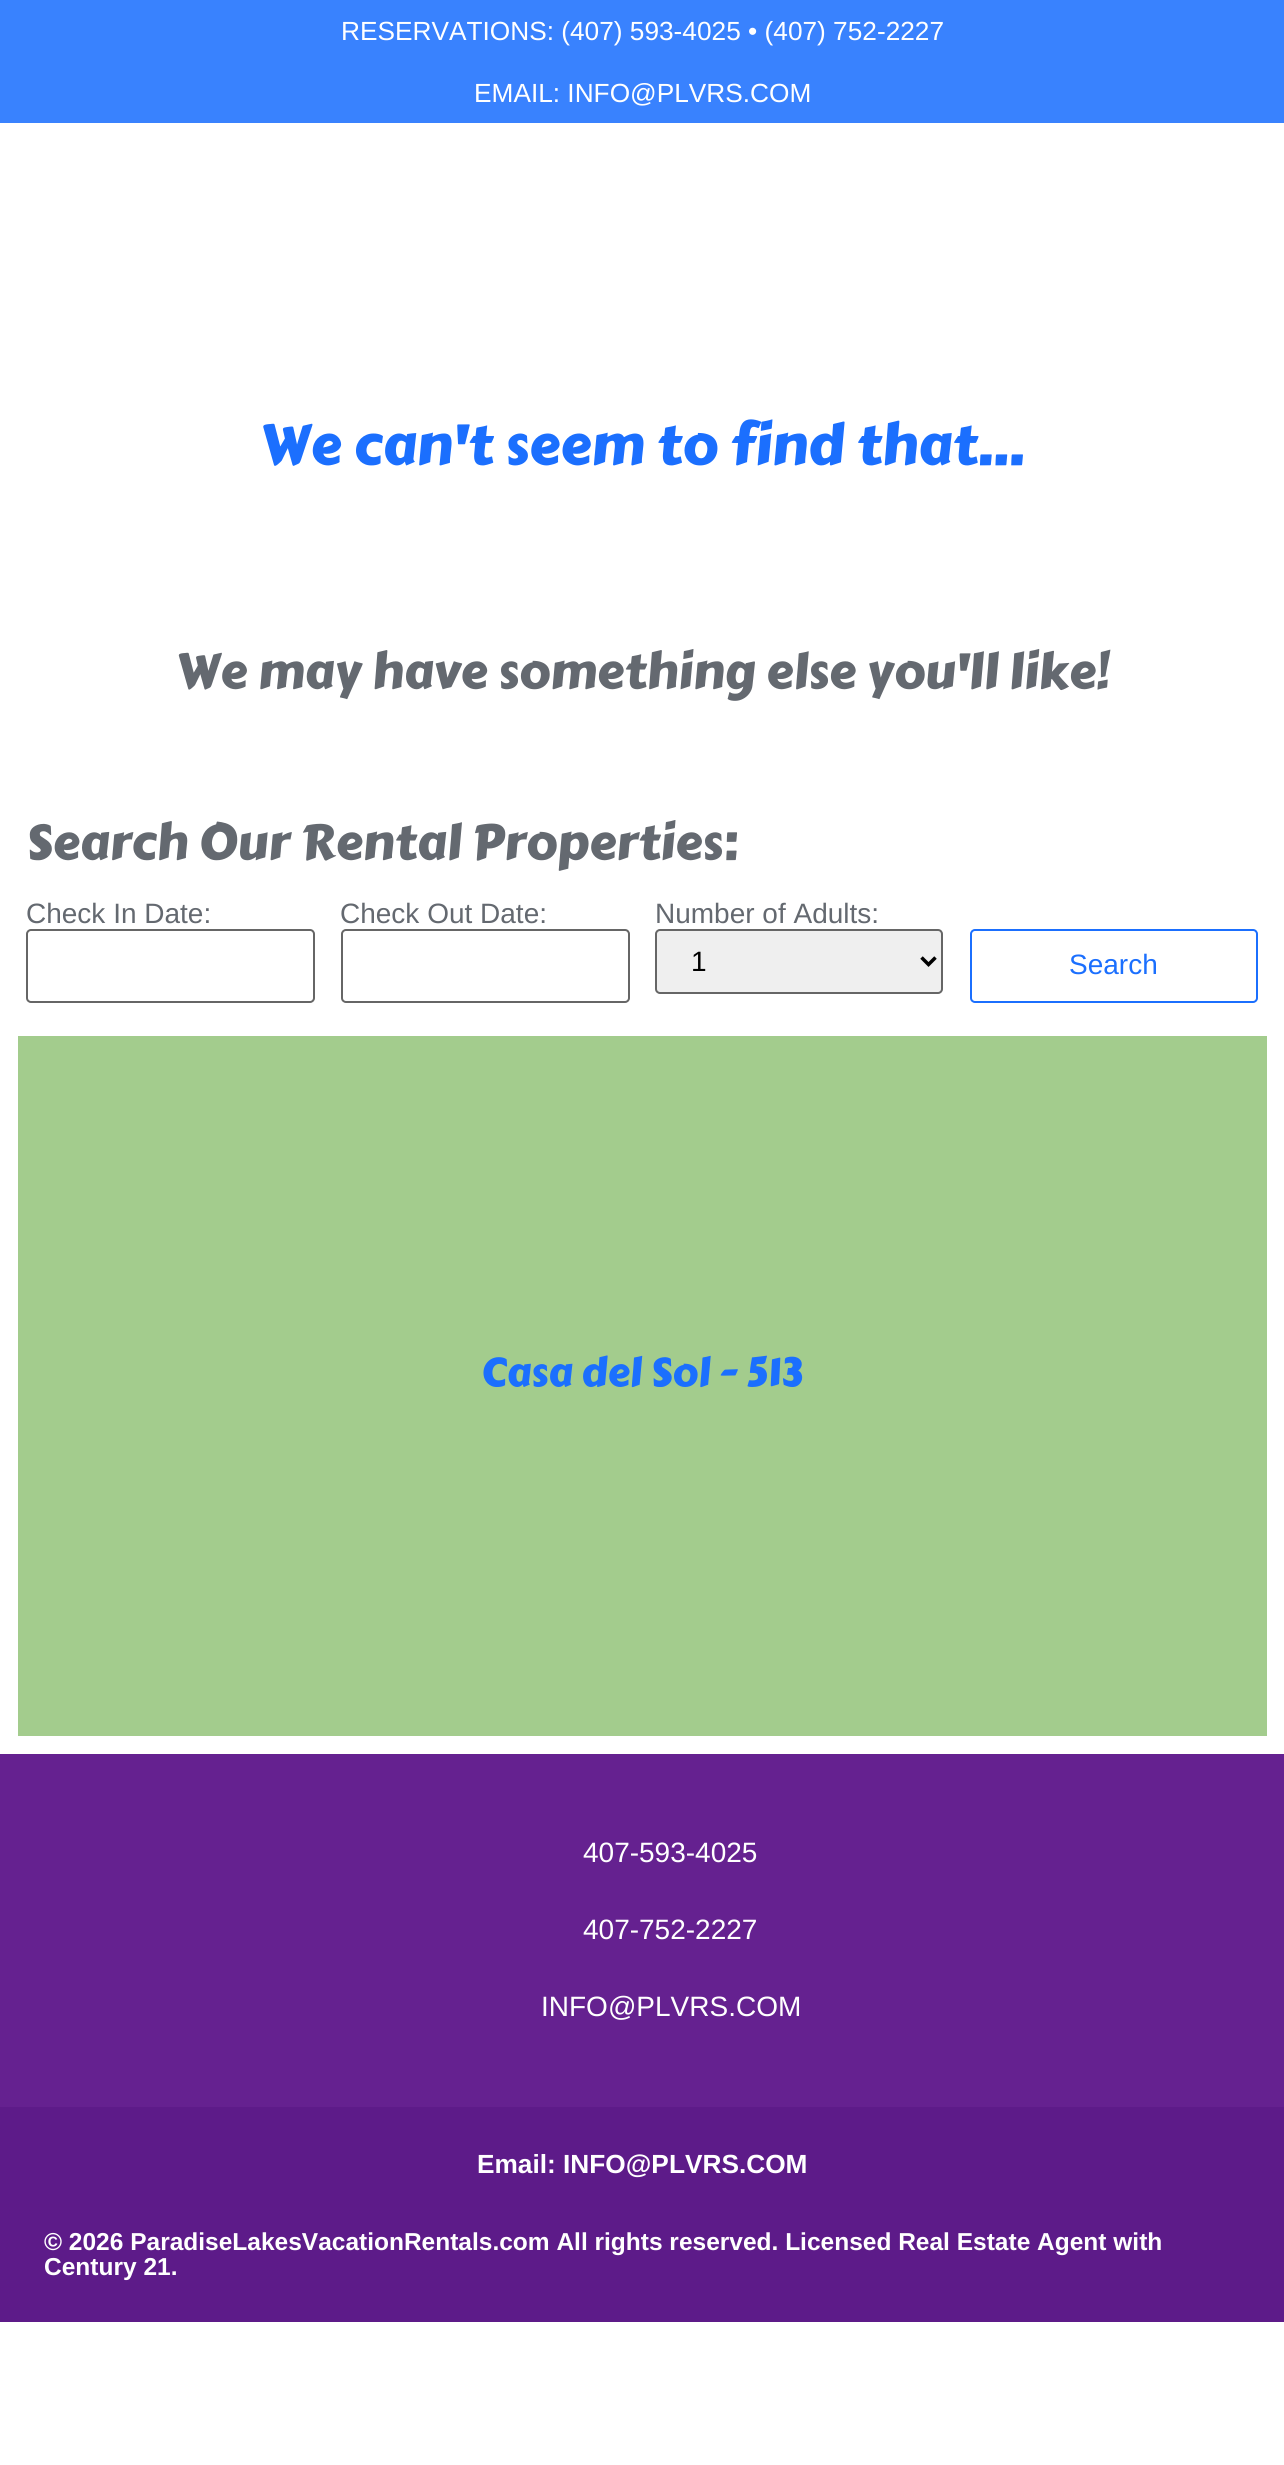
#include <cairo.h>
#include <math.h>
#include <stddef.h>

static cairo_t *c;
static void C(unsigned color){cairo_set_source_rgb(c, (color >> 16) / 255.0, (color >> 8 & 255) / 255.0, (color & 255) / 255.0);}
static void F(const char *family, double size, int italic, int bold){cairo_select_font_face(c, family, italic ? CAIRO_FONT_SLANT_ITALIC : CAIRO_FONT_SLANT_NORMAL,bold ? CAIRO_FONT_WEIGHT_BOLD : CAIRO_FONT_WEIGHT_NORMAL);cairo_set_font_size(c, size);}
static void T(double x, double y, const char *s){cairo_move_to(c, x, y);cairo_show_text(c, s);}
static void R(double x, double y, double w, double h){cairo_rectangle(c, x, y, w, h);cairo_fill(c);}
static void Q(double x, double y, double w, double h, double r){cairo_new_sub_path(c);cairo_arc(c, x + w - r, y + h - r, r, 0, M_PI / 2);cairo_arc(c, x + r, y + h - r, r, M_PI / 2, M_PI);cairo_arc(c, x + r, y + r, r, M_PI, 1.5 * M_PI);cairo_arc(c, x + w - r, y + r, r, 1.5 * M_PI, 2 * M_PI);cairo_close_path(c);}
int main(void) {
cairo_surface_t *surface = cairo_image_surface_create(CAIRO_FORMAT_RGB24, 1284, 2465);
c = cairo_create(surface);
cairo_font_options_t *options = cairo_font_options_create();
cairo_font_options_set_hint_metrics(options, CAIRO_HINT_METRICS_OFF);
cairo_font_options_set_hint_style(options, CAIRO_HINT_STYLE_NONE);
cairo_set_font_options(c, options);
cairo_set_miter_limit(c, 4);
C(0xffffff);
cairo_paint(c);
C(0x3982fe);
R(0,0,1284,123);
F("Liberation Sans",26.25,0,0);
C(0xffffff);
T(341,40,"RESERVATIONS: (407) 593-4025 • (407) 752-2227");
T(474,102,"EMAIL: INFO@PLVRS.COM");
F("Carter One",56,0,0);
C(0x1b6ffe);
T(260,464,"We can't seem to find that...");
F("Carter One",49,0,0);
C(0x646970);
T(176,688,"We may have something else you'll like!");
T(26,859,"Search Our Rental Properties:");
F("Liberation Sans",28,0,0);
T(26,923,"Check In Date:");
Q(27,930,287,72,4);
C(0x666666);
cairo_stroke(c);
C(0x646970);
T(340,923,"Check Out Date:");
Q(342,930,287,72,4);
C(0x666666);
cairo_stroke(c);
C(0x646970);
T(655,923,"Number of Adults:");
C(0xefefef);
Q(656,930,286,63,4);
cairo_fill_preserve(c);
C(0x666666);
cairo_stroke(c);
cairo_new_path(c);
cairo_move_to(c,921.5,957.5);
cairo_line_to(c,928.5,964.5);
cairo_line_to(c,935.5,957.5);
C(0x000000);
cairo_set_line_width(c,3.5);
cairo_stroke(c);
T(691,971,"1");
Q(971,930,286,72,4);
C(0x1b6ffe);
cairo_set_line_width(c,2);
cairo_stroke(c);
T(1069,974,"Search");
C(0xa3cc8d);
R(18,1036,1249,700);
F("Carter One",40.25,0,0);
C(0x1b6ffe);
T(481,1386,"Casa del Sol - 513");
C(0x652190);
R(0,1754,1284,353);
F("Liberation Sans",28,0,0);
C(0xffffff);
T(583,1862,"407-593-4025");
T(583,1939,"407-752-2227");
T(541,2016,"INFO@PLVRS.COM");
C(0x5d1b89);
R(0,2107,1284,215);
F("Liberation Sans",26.25,0,1);
C(0xffffff);
T(477,2173,"Email: INFO@PLVRS.COM");
F("Liberation Sans",24.5,0,1);
T(44,2250,"© 2026 ParadiseLakesVacationRentals.com All rights reserved. Licensed Real Estate Agent with");
T(44,2275,"Century 21.");
cairo_surface_write_to_png(surface, "o.png");
cairo_font_options_destroy(options);
cairo_destroy(c);
cairo_surface_destroy(surface);
return 0;
}
